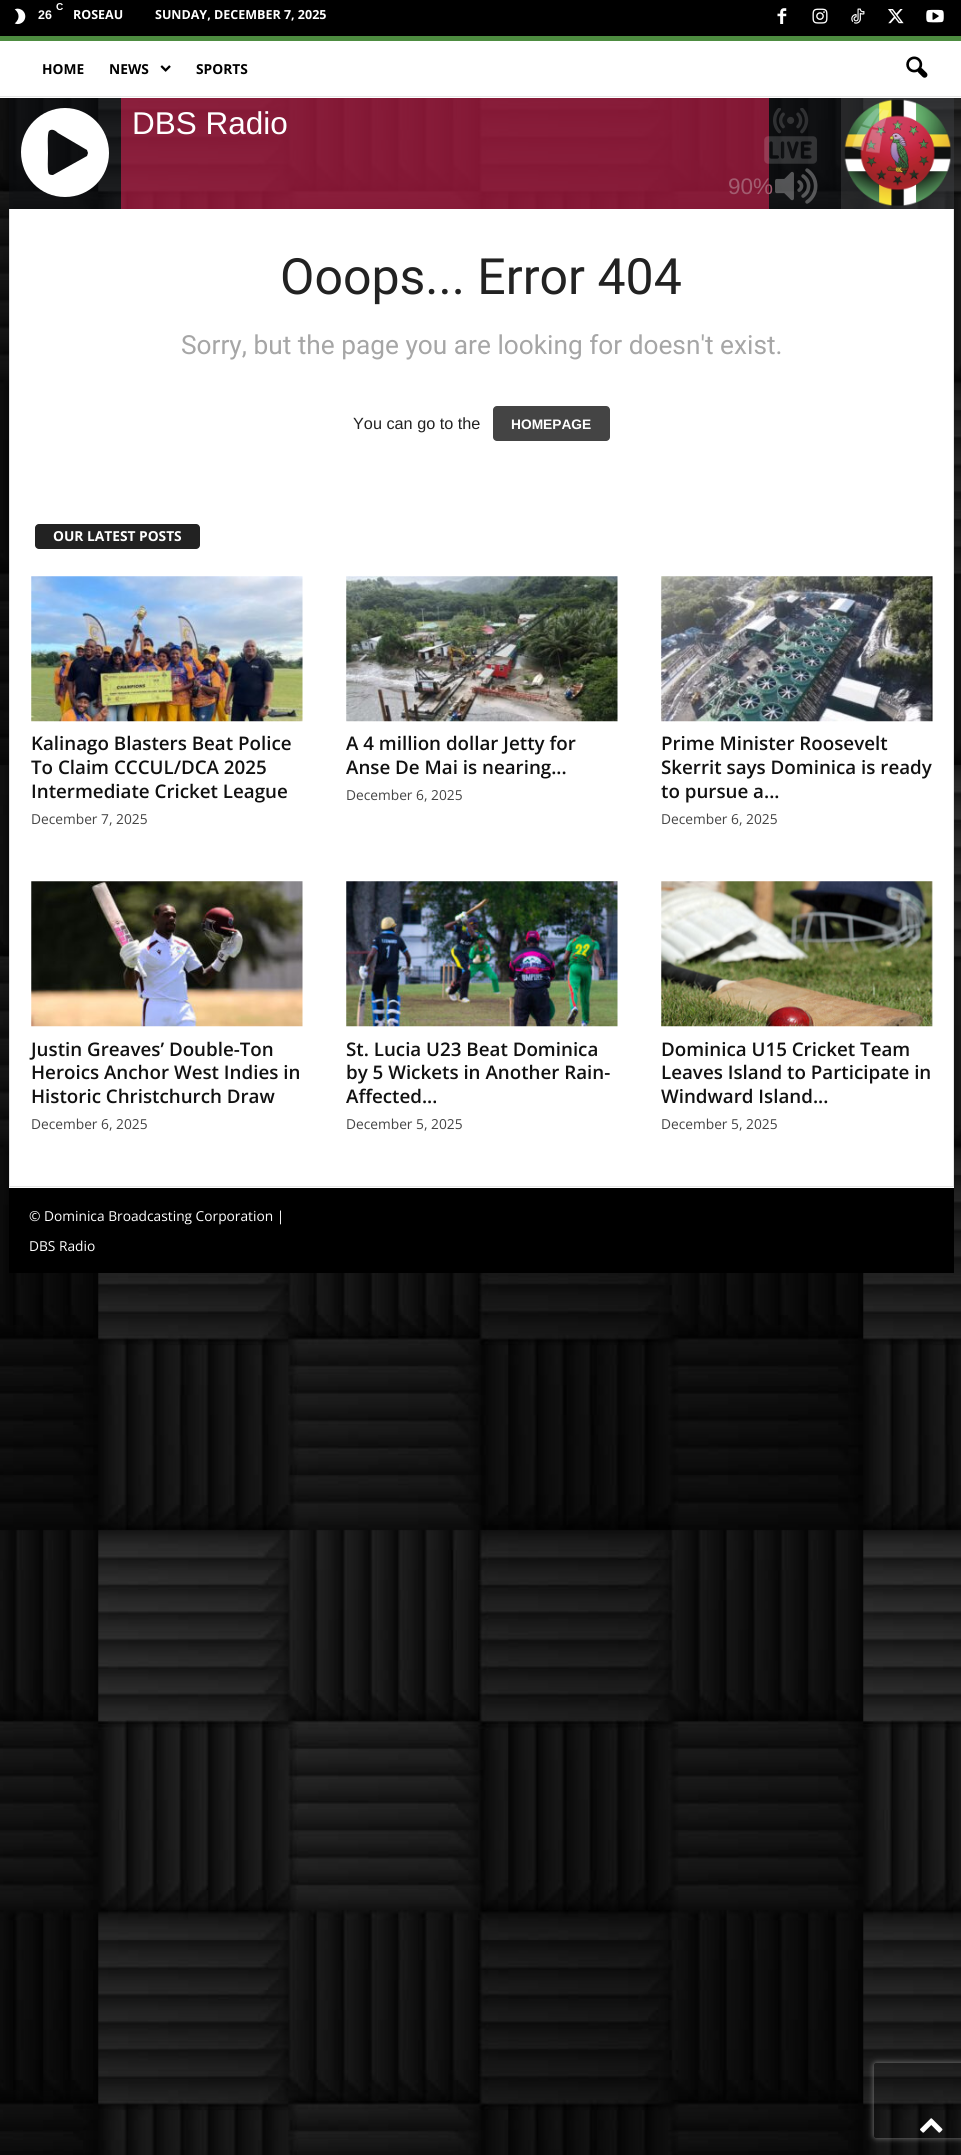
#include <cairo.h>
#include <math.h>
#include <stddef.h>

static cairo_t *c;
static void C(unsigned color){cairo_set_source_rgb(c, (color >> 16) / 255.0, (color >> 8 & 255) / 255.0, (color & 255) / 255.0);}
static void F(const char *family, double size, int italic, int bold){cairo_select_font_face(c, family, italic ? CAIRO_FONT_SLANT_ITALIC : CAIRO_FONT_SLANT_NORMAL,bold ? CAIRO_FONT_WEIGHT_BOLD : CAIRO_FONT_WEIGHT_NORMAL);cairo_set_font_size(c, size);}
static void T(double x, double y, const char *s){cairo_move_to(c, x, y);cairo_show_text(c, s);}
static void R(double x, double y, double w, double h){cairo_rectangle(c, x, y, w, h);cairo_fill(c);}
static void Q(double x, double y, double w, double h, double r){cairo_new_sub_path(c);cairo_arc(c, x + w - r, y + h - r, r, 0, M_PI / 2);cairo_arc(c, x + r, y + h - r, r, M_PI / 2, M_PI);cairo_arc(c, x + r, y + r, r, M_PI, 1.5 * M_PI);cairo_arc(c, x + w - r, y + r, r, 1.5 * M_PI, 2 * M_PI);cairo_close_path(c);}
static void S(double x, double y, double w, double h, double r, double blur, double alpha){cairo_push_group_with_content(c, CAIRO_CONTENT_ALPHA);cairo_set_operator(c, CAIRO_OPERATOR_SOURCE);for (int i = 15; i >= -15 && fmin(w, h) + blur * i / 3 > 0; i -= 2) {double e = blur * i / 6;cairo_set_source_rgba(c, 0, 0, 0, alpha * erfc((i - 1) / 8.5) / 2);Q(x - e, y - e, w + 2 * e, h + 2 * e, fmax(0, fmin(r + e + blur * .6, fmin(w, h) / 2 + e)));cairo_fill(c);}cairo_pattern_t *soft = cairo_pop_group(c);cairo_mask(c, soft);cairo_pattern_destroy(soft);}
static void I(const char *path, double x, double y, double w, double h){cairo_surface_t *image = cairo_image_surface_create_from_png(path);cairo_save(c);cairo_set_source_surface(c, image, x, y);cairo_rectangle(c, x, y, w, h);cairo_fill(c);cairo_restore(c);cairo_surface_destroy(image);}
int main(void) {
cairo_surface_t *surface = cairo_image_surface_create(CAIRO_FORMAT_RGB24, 961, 2155);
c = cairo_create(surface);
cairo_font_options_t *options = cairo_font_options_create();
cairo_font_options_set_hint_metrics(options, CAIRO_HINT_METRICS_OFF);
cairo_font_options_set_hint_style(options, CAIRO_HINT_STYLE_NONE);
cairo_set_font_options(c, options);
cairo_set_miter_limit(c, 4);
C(0xffffff);
cairo_paint(c);
I("1.png",0,98,961,2057);
C(0x000000);
R(0,0,961,36);
I("2.png",14,8,12,17);
F("Liberation Sans",10,0,1);
C(0xffffff);
T(56,10,"C");
F("Liberation Sans",12.5,0,1);
T(38,19,"26");
F("Open Sans",12.5,0,1);
T(73,19,"ROSEAU");
T(155,19,"SUNDAY, DECEMBER 7, 2025");
I("3.png",777,8,10,16);
I("4.png",812,8,16,16);
I("5.png",851,8,14,16);
I("6.png",888,9,16,15);
I("7.png",926,9,18,14);
C(0xe6e6e6);
R(0,96,961,1);
C(0x4d8c40);
R(0,36,961,5);
F("Open Sans",13.75,0,1);
C(0x000000);
T(42,74,"HOME");
T(109,74,"NEWS");
I("8.png",160,65,11,7);
T(196,74,"SPORTS");
I("9.png",906,56,22,22);
cairo_set_source_rgba(c,0.055,0.063,0.082,0.5);
R(9,98,945,111);
C(0xffffff);
cairo_new_path(c);
cairo_move_to(c,109,153);
cairo_curve_to(c,109,177,90,197,65,197);
cairo_curve_to(c,40,197,21,177,21,152);
cairo_curve_to(c,21,128,41,108,65,108);
cairo_curve_to(c,89,108,109,128,109,153);
cairo_close_path(c);
cairo_move_to(c,48,153);
cairo_curve_to(c,48,156,47,172,49,174);
cairo_curve_to(c,50,175,52,175,53,175);
cairo_line_to(c,87,156);
cairo_line_to(c,88,153);
cairo_line_to(c,87,150);
cairo_line_to(c,58,133);
cairo_curve_to(c,56,131,52,128,49,131);
cairo_curve_to(c,47,134,48,149,48,153);
cairo_close_path(c);
cairo_fill(c);
cairo_set_source_rgba(c,0.98,0.133,0.357,0.5);
R(121,98,648,111);
I("10.png",764,108,53,56);
cairo_set_source_rgba(c,1,1,1,0.1);
R(841,98,113,111);
I("11.png",844,99,107,107);
F("Liberation Sans",31.5,0,0);
C(0xffffff);
T(132,134,"DBS Radio");
F("Liberation Sans",22.5,0,0);
C(0xa25d70);
T(728,194,"90%");
I("12.png",775,168,43,36);
C(0xffffff);
R(9,209,945,979);
C(0xe6e6e6);
R(9,1186,945,1);
R(9,209,1,977);
F("Roboto",50,0,0);
C(0x222222);
T(280,294,"Ooops... Error 404");
F("Roboto",26.25,0,0);
C(0xa6a6a6);
T(181,354,"Sorry, but the page you are looking for doesn't exist.");
F("Liberation Sans",16.25,0,0);
C(0x222222);
T(353,429,"You can go to the");
C(0x444444);
Q(493,406,117,35,4);
cairo_fill(c);
F("Liberation Sans",13.75,0,1);
C(0xffffff);
T(511,429,"HOMEPAGE");
C(0x222222);
Q(35,524,165,25,4);
cairo_fill(c);
F("Open Sans",13.75,0,1);
C(0xffffff);
T(53,541,"OUR LATEST POSTS");
I("13.png",31,576,272,146);
F("Open Sans SemiBold",18.75,0,0);
C(0x111111);
T(31,750,"Kalinago Blasters Beat Police");
T(31,774,"To Claim CCCUL/DCA 2025");
T(31,798,"Intermediate Cricket League");
F("Open Sans",13.75,0,0);
C(0x444444);
T(31,824,"December 7, 2025");
I("14.png",346,576,272,146);
F("Open Sans SemiBold",18.75,0,0);
C(0x111111);
T(346,750,"A 4 million dollar Jetty for");
T(346,774,"Anse De Mai is nearing...");
F("Open Sans",13.75,0,0);
C(0x444444);
T(346,800,"December 6, 2025");
I("15.png",661,576,272,146);
F("Open Sans SemiBold",18.75,0,0);
C(0x111111);
T(661,750,"Prime Minister Roosevelt");
T(661,774,"Skerrit says Dominica is ready");
T(661,798,"to pursue a...");
F("Open Sans",13.75,0,0);
C(0x444444);
T(661,824,"December 6, 2025");
I("16.png",31,881,272,146);
F("Open Sans SemiBold",18.75,0,0);
C(0x111111);
T(31,1056,"Justin Greaves’ Double-Ton");
T(31,1079,"Heroics Anchor West Indies in");
T(31,1103,"Historic Christchurch Draw");
F("Open Sans",13.75,0,0);
C(0x444444);
T(31,1129,"December 6, 2025");
I("17.png",346,881,272,146);
F("Open Sans SemiBold",18.75,0,0);
C(0x111111);
T(346,1056,"St. Lucia U23 Beat Dominica");
T(346,1079,"by 5 Wickets in Another Rain-");
T(346,1103,"Affected...");
F("Open Sans",13.75,0,0);
C(0x444444);
T(346,1129,"December 5, 2025");
I("18.png",661,881,272,146);
F("Open Sans SemiBold",18.75,0,0);
C(0x111111);
T(661,1056,"Dominica U15 Cricket Team");
T(661,1079,"Leaves Island to Participate in");
T(661,1103,"Windward Island...");
F("Open Sans",13.75,0,0);
C(0x444444);
T(661,1129,"December 5, 2025");
C(0xe6e6e6);
R(953,209,1,977);
C(0x000000);
R(9,1188,945,85);
C(0xffffff);
T(29,1221,"© Dominica Broadcasting Corporation |");
T(29,1251,"DBS Radio");
I("19.png",920,2118,23,15);
cairo_save(c);
cairo_set_fill_rule(c,CAIRO_FILL_RULE_EVEN_ODD);
cairo_new_path(c);
cairo_move_to(c,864,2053);
cairo_line_to(c,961,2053);
cairo_line_to(c,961,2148);
cairo_line_to(c,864,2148);
cairo_close_path(c);
cairo_move_to(c,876.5,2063);
cairo_line_to(c,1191.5,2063);
cairo_curve_to(c,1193,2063,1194,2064,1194,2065.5);
cairo_line_to(c,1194,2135.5);
cairo_curve_to(c,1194,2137,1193,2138,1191.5,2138);
cairo_line_to(c,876.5,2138);
cairo_curve_to(c,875,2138,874,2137,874,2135.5);
cairo_line_to(c,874,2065.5);
cairo_curve_to(c,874,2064,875,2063,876.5,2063);
cairo_close_path(c);
cairo_clip(c);
C(0x808080);
S(874,2063,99,75,2.5,3,1);
cairo_restore(c);
cairo_surface_write_to_png(surface, "o.png");
cairo_font_options_destroy(options);
cairo_destroy(c);
cairo_surface_destroy(surface);
return 0;
}
